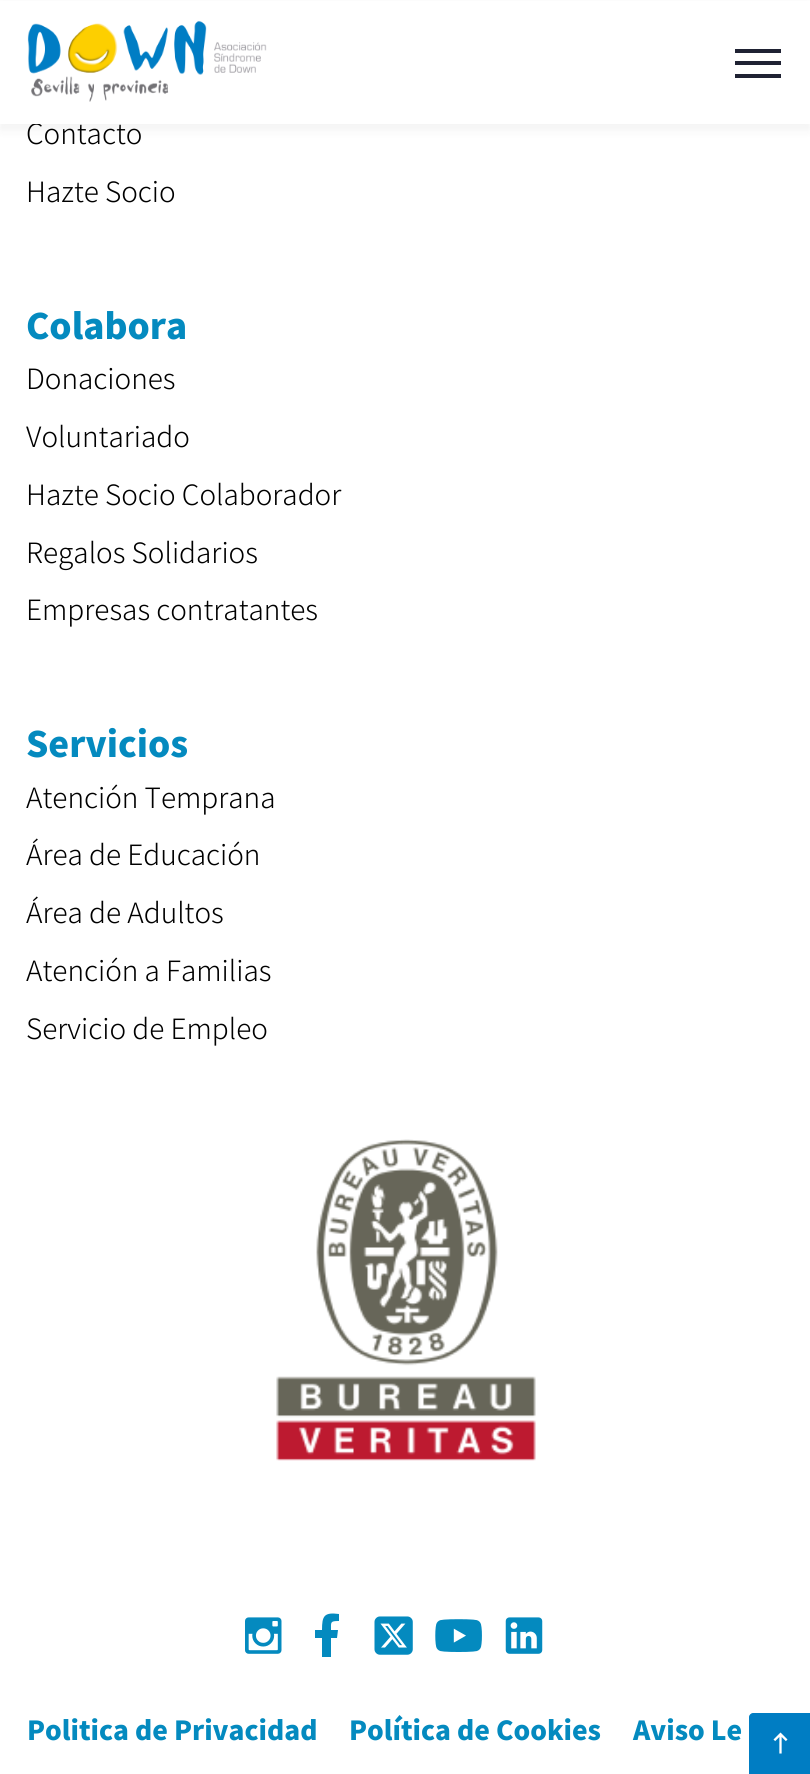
#include <cairo.h>
#include <math.h>
#include <stddef.h>

static cairo_t *c;
static void C(unsigned color){cairo_set_source_rgb(c, (color >> 16) / 255.0, (color >> 8 & 255) / 255.0, (color & 255) / 255.0);}
static void F(const char *family, double size, int italic, int bold){cairo_select_font_face(c, family, italic ? CAIRO_FONT_SLANT_ITALIC : CAIRO_FONT_SLANT_NORMAL,bold ? CAIRO_FONT_WEIGHT_BOLD : CAIRO_FONT_WEIGHT_NORMAL);cairo_set_font_size(c, size);}
static void T(double x, double y, const char *s){cairo_move_to(c, x, y);cairo_show_text(c, s);}
static void R(double x, double y, double w, double h){cairo_rectangle(c, x, y, w, h);cairo_fill(c);}
static void Q(double x, double y, double w, double h, double r){cairo_new_sub_path(c);cairo_arc(c, x + w - r, y + h - r, r, 0, M_PI / 2);cairo_arc(c, x + r, y + h - r, r, M_PI / 2, M_PI);cairo_arc(c, x + r, y + r, r, M_PI, 1.5 * M_PI);cairo_arc(c, x + w - r, y + r, r, 1.5 * M_PI, 2 * M_PI);cairo_close_path(c);}
static void S(double x, double y, double w, double h, double r, double blur, double alpha){cairo_push_group_with_content(c, CAIRO_CONTENT_ALPHA);cairo_set_operator(c, CAIRO_OPERATOR_SOURCE);for (int i = 15; i >= -15 && fmin(w, h) + blur * i / 3 > 0; i -= 2) {double e = blur * i / 6;cairo_set_source_rgba(c, 0, 0, 0, alpha * erfc((i - 1) / 8.5) / 2);Q(x - e, y - e, w + 2 * e, h + 2 * e, fmax(0, fmin(r + e + blur * .6, fmin(w, h) / 2 + e)));cairo_fill(c);}cairo_pattern_t *soft = cairo_pop_group(c);cairo_mask(c, soft);cairo_pattern_destroy(soft);}
static void I(const char *path, double x, double y, double w, double h){cairo_surface_t *image = cairo_image_surface_create_from_png(path);cairo_save(c);cairo_set_source_surface(c, image, x, y);cairo_rectangle(c, x, y, w, h);cairo_fill(c);cairo_restore(c);cairo_surface_destroy(image);}
int main(void) {
cairo_surface_t *surface = cairo_image_surface_create(CAIRO_FORMAT_RGB24, 810, 1774);
c = cairo_create(surface);
cairo_font_options_t *options = cairo_font_options_create();
cairo_font_options_set_hint_metrics(options, CAIRO_HINT_METRICS_OFF);
cairo_font_options_set_hint_style(options, CAIRO_HINT_STYLE_NONE);
cairo_set_font_options(c, options);
cairo_set_miter_limit(c, 4);
C(0xffffff);
cairo_paint(c);
C(0x000000);
S(0,5,810,125,0,5,.05);
F("Noto Sans HK Light",28,0,0);
C(0x000000);
T(26,144,"Contacto");
C(0xffffff);
R(0,1,810,123);
I("1.png",27,20,240,82);
C(0x1f2233);
R(735,49,46,4);
R(735,61,46,4);
R(735,74,46,4);
C(0x000000);
T(26,202,"Hazte Socio");
F("Noto Sans HK Black",35,0,0);
C(0x048abf);
T(26,339,"Colabora");
F("Noto Sans HK Light",28,0,0);
C(0x000000);
T(26,389,"Donaciones");
T(26,447,"Voluntariado");
T(26,505,"Hazte Socio Colaborador");
T(26,563,"Regalos Solidarios");
T(26,620,"Empresas contratantes");
F("Noto Sans HK Black",35,0,0);
C(0x048abf);
T(26,757,"Servicios");
F("Noto Sans HK Light",28,0,0);
C(0x000000);
T(26,808,"Atención Temprana");
T(26,865,"Área de Educación");
T(26,923,"Área de Adultos");
T(26,981,"Atención a Familias");
T(26,1039,"Servicio de Empleo");
I("2.png",276,1139,260,322);
I("3.png",245,1617,37,37);
C(0x048abf);
cairo_new_path(c);
cairo_move_to(c,337,1638);
cairo_line_to(c,331,1638);
cairo_line_to(c,331,1657);
cairo_line_to(c,322,1657);
cairo_line_to(c,322,1638);
cairo_line_to(c,315,1638);
cairo_line_to(c,315,1630);
cairo_line_to(c,322,1630);
cairo_curve_to(c,322,1616,324,1612,339,1614);
cairo_line_to(c,339,1621);
cairo_curve_to(c,330,1621,331,1622,331,1630);
cairo_line_to(c,338,1630);
cairo_close_path(c);
cairo_fill(c);
I("4.png",374,1616,39,39);
I("5.png",435,1619,47,33);
I("6.png",505,1617,38,37);
F("Noto Sans HK Black",26.25,0,0);
T(27,1740,"Politica de Privacidad");
T(349,1740,"Política de Cookies");
T(633,1740,"Aviso Le");
C(0x007dc3);
cairo_new_path(c);
cairo_move_to(c,753,1713);
cairo_line_to(c,810,1713);
cairo_line_to(c,810,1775);
cairo_line_to(c,749,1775);
cairo_line_to(c,749,1717);
cairo_curve_to(c,749,1715,751,1713,753,1713);
cairo_close_path(c);
cairo_fill(c);
I("7.png",773,1732,15,22);
cairo_surface_write_to_png(surface, "o.png");
cairo_font_options_destroy(options);
cairo_destroy(c);
cairo_surface_destroy(surface);
return 0;
}
